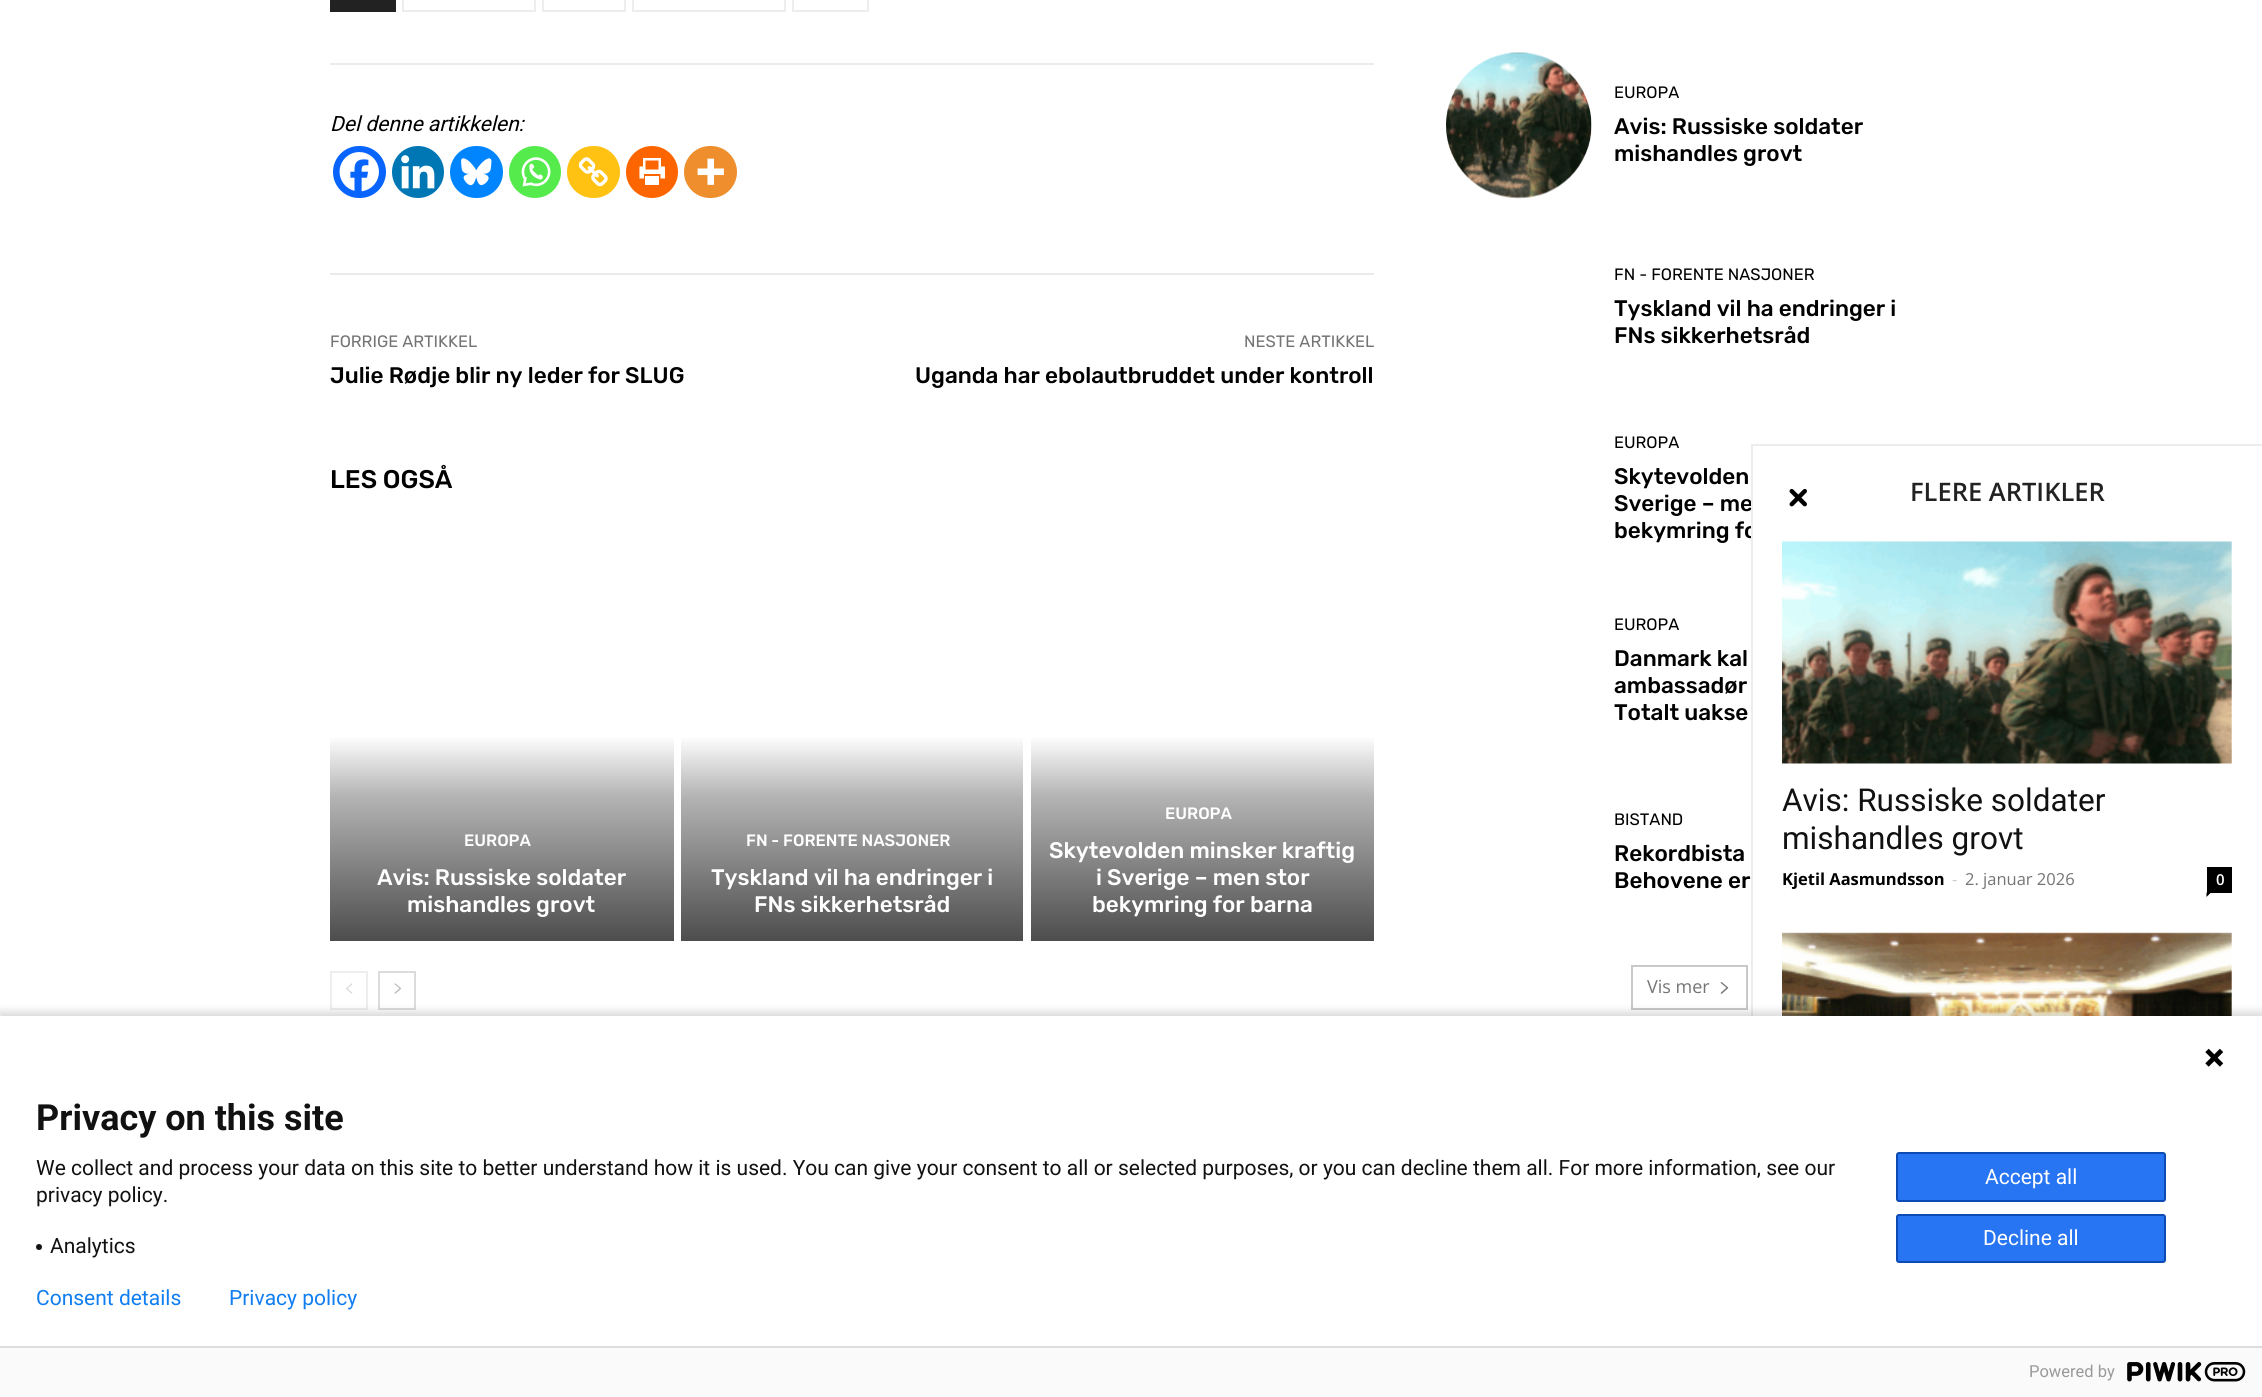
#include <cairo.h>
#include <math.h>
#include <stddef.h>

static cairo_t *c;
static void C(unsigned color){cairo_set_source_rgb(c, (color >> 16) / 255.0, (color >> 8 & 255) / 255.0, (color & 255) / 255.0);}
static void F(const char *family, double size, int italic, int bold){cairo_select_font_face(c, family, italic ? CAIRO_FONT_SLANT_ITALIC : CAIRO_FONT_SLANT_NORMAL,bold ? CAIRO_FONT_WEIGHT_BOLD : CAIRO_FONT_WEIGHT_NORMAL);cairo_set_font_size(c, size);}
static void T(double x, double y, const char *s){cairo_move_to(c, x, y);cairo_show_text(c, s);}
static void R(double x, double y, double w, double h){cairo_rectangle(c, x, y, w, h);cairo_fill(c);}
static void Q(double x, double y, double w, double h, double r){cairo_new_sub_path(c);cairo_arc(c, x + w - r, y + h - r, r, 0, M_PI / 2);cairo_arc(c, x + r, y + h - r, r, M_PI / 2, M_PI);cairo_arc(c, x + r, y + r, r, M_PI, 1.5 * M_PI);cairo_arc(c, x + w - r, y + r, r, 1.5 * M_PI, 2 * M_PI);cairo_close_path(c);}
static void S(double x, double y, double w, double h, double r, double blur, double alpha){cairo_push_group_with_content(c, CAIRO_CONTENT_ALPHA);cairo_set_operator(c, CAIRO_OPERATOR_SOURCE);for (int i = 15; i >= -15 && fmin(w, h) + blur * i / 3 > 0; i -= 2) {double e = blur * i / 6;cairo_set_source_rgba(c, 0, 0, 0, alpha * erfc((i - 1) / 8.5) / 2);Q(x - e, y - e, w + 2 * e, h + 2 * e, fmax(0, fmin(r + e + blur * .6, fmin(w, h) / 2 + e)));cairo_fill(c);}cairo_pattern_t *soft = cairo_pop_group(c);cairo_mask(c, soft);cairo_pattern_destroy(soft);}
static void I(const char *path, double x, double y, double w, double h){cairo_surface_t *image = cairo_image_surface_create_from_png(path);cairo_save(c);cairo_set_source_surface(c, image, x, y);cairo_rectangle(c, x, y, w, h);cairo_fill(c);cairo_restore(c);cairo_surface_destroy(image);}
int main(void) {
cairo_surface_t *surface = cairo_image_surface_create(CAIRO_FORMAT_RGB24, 2262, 1397);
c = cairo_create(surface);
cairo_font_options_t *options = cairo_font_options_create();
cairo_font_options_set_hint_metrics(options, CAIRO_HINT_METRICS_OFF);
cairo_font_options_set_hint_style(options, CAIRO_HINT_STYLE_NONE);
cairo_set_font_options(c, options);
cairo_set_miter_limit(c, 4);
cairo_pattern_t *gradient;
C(0xffffff);
cairo_paint(c);
C(0x222222);
R(330,0,66,12);
cairo_rectangle(c,403,-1,132,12);
C(0xededed);
cairo_stroke(c);
cairo_rectangle(c,543,-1,82,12);
cairo_stroke(c);
cairo_rectangle(c,633,-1,152,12);
cairo_stroke(c);
cairo_rectangle(c,793,-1,75,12);
cairo_stroke(c);
C(0xebebeb);
R(330,63,1044,2);
F("Roboto",21,1,0);
C(0x000000);
T(330,131,"Del denne artikkelen:");
C(0x0765fe);
Q(333,146,53,52,26);
cairo_fill(c);
I("1.png",339,152,40,40);
C(0x0077b5);
cairo_arc(c,418,172,26,0,2 * M_PI);
cairo_fill(c);
I("2.png",401,155,34,34);
C(0x0085ff);
Q(450,146,53,52,26);
cairo_fill(c);
I("3.png",461,158,31,28);
C(0x55eb4c);
cairo_arc(c,535,172,26,0,2 * M_PI);
cairo_fill(c);
I("4.png",521,157,30,30);
C(0xffc112);
Q(567,146,53,52,26);
cairo_fill(c);
I("5.png",578,157,30,30);
C(0xfd6500);
cairo_arc(c,652,172,26,0,2 * M_PI);
cairo_fill(c);
I("6.png",639,158,26,27);
C(0xee8e2d);
Q(684,146,53,52,26);
cairo_fill(c);
I("7.png",697,158,27,27);
C(0xebebeb);
R(330,273,1044,2);
F("Rubik",16.5,0,0);
C(0x747474);
T(330,347,"FORRIGE ARTIKKEL");
F("Rubik Medium",22.5,0,0);
C(0x000000);
T(330,383,"Julie Rødje blir ny leder for SLUG");
F("Rubik",16.5,0,0);
C(0x747474);
T(1244,347,"NESTE ARTIKKEL");
F("Rubik Medium",22.5,0,0);
C(0x000000);
T(915,383,"Uganda har ebolautbruddet under kontroll");
F("Rubik Medium",25.5,0,0);
T(330,488,"LES OGSÅ");
gradient = cairo_pattern_create_linear(502,941,502,530);
cairo_pattern_add_color_stop_rgba(gradient,0,0.302,0.302,0.302,1);
cairo_pattern_add_color_stop_rgba(gradient,.35,0.702,0.702,0.702,1);
cairo_pattern_add_color_stop_rgba(gradient,.5,1,1,1,1);
cairo_pattern_add_color_stop_rgba(gradient,1,1,1,1,1);
cairo_set_source(c,gradient);
cairo_pattern_destroy(gradient);
R(330,738,344,203);
F("Rubik Medium",16.5,0,0);
C(0xffffff);
T(464,846,"EUROPA");
F("Rubik Medium",22.5,0,0);
T(377,885,"Avis: Russiske soldater");
T(407,912,"mishandles grovt");
gradient = cairo_pattern_create_linear(852,941,852,530);
cairo_pattern_add_color_stop_rgba(gradient,0,0.302,0.302,0.302,1);
cairo_pattern_add_color_stop_rgba(gradient,.35,0.702,0.702,0.702,1);
cairo_pattern_add_color_stop_rgba(gradient,.5,1,1,1,1);
cairo_pattern_add_color_stop_rgba(gradient,1,1,1,1,1);
cairo_set_source(c,gradient);
cairo_pattern_destroy(gradient);
R(681,738,342,203);
F("Rubik Medium",16.5,0,0);
C(0xffffff);
T(746,846,"FN - FORENTE NASJONER");
F("Rubik Medium",22.5,0,0);
T(711,885,"Tyskland vil ha endringer i");
T(754,912,"FNs sikkerhetsråd");
gradient = cairo_pattern_create_linear(1202,941,1202,530);
cairo_pattern_add_color_stop_rgba(gradient,0,0.302,0.302,0.302,1);
cairo_pattern_add_color_stop_rgba(gradient,.35,0.702,0.702,0.702,1);
cairo_pattern_add_color_stop_rgba(gradient,.5,1,1,1,1);
cairo_pattern_add_color_stop_rgba(gradient,1,1,1,1,1);
cairo_set_source(c,gradient);
cairo_pattern_destroy(gradient);
R(1031,738,343,203);
F("Rubik Medium",16.5,0,0);
C(0xffffff);
T(1165,819,"EUROPA");
F("Rubik Medium",22.5,0,0);
T(1049,858,"Skytevolden minsker kraftig");
T(1096,885,"i Sverige – men stor");
T(1092,912,"bekymring for barna");
cairo_rectangle(c,331,972,36,37);
C(0xeeeeee);
cairo_stroke(c);
I("8.png",346,983,7,11);
cairo_rectangle(c,379,972,36,37);
C(0xdcdcdc);
cairo_stroke(c);
I("9.png",394,983,7,11);
I("10.png",1446,52,146,147);
F("Rubik",16.5,0,0);
C(0x000000);
T(1614,98,"EUROPA");
F("Rubik Medium",22.5,0,0);
T(1614,134,"Avis: Russiske soldater");
T(1614,161,"mishandles grovt");
F("Rubik",16.5,0,0);
T(1614,280,"FN - FORENTE NASJONER");
F("Rubik Medium",22.5,0,0);
T(1614,316,"Tyskland vil ha endringer i");
T(1614,343,"FNs sikkerhetsråd");
F("Rubik",16.5,0,0);
T(1614,448,"EUROPA");
F("Rubik Medium",22.5,0,0);
T(1614,484,"Skytevolden");
T(1614,511,"Sverige – me");
T(1614,538,"bekymring fo");
F("Rubik",16.5,0,0);
T(1614,630,"EUROPA");
F("Rubik Medium",22.5,0,0);
T(1614,666,"Danmark kal");
T(1614,693,"ambassadør");
T(1614,720,"Totalt uakse");
F("Rubik",16.5,0,0);
T(1614,825,"BISTAND");
F("Rubik Medium",22.5,0,0);
T(1614,861,"Rekordbista");
T(1614,888,"Behovene er");
cairo_rectangle(c,1632,966,115,43);
C(0xc9c9c9);
cairo_stroke(c);
F("Open Sans",18,0,0);
C(0x747474);
T(1647,993,"Vis mer");
I("11.png",1720,982,9,12);
C(0xffffff);
R(1753,526,4,12);
C(0xededed);
R(1751,444,511,2);
R(1751,444,2,572);
I("12.png",1789,488,18,19);
F("Open Sans SemiBold",25.5,0,0);
C(0x222222);
T(1910,501,"FLERE ARTIKLER");
I("13.png",1782,541,450,223);
F("Roboto",31.5,0,0);
C(0x111111);
T(1782,811,"Avis: Russiske soldater");
T(1782,849,"mishandles grovt");
F("Open Sans",16.5,0,1);
C(0x000000);
T(1782,885,"Kjetil Aasmundsson");
F("Open Sans",16.5,0,0);
C(0xcccccc);
T(1952,885,"-");
C(0x747474);
T(1965,885,"2. januar 2026");
C(0x000000);
R(2207,867,25,26);
F("Open Sans SemiBold",15,0,0);
C(0xffffff);
T(2216,885,"0");
C(0x000000);
cairo_new_path(c);
cairo_move_to(c,2206.5,892.5);
cairo_line_to(c,2211,892.5);
cairo_line_to(c,2206.5,897);
cairo_close_path(c);
cairo_fill(c);
I("14.png",1782,932,450,84);
C(0x000000);
S(-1,1011,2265,386,0,4,.14);
C(0xffffff);
R(0,1016,2262,330);
I("15.png",2205,1048,19,19);
F("Roboto",36,0,1);
C(0x111111);
T(36,1130,"Privacy on this site");
F("Roboto",21,0,0);
T(36,1175,"We collect and process your data on this site to better understand how it is used. You can give your consent to all or selected purposes, or you can decline them all. For more information, see our");
T(36,1202,"privacy policy.");
C(0x131313);
cairo_new_path(c);
cairo_arc(c,39,1247,3,0,2 * M_PI);
cairo_fill(c);
C(0x111111);
T(50,1253,"Analytics");
C(0x2775f2);
Q(1897,1153,268,48,2);
cairo_fill_preserve(c);
C(0x0b4bb3);
cairo_stroke(c);
C(0xffffff);
T(1985,1184,"Accept all");
C(0x2775f2);
Q(1897,1215,268,47,2);
cairo_fill_preserve(c);
C(0x0b4bb3);
cairo_stroke(c);
C(0xffffff);
T(1983,1245,"Decline all");
C(0x107ef1);
T(36,1305,"Consent details");
T(229,1305,"Privacy policy");
C(0xfafafa);
R(0,1348,2262,49);
C(0xdddddd);
R(0,1346,2262,2);
F("Roboto",16.5,0,0);
C(0x999999);
T(2029,1377,"Powered by");
I("16.png",2127,1362,119,20);
cairo_surface_write_to_png(surface, "o.png");
cairo_font_options_destroy(options);
cairo_destroy(c);
cairo_surface_destroy(surface);
return 0;
}
